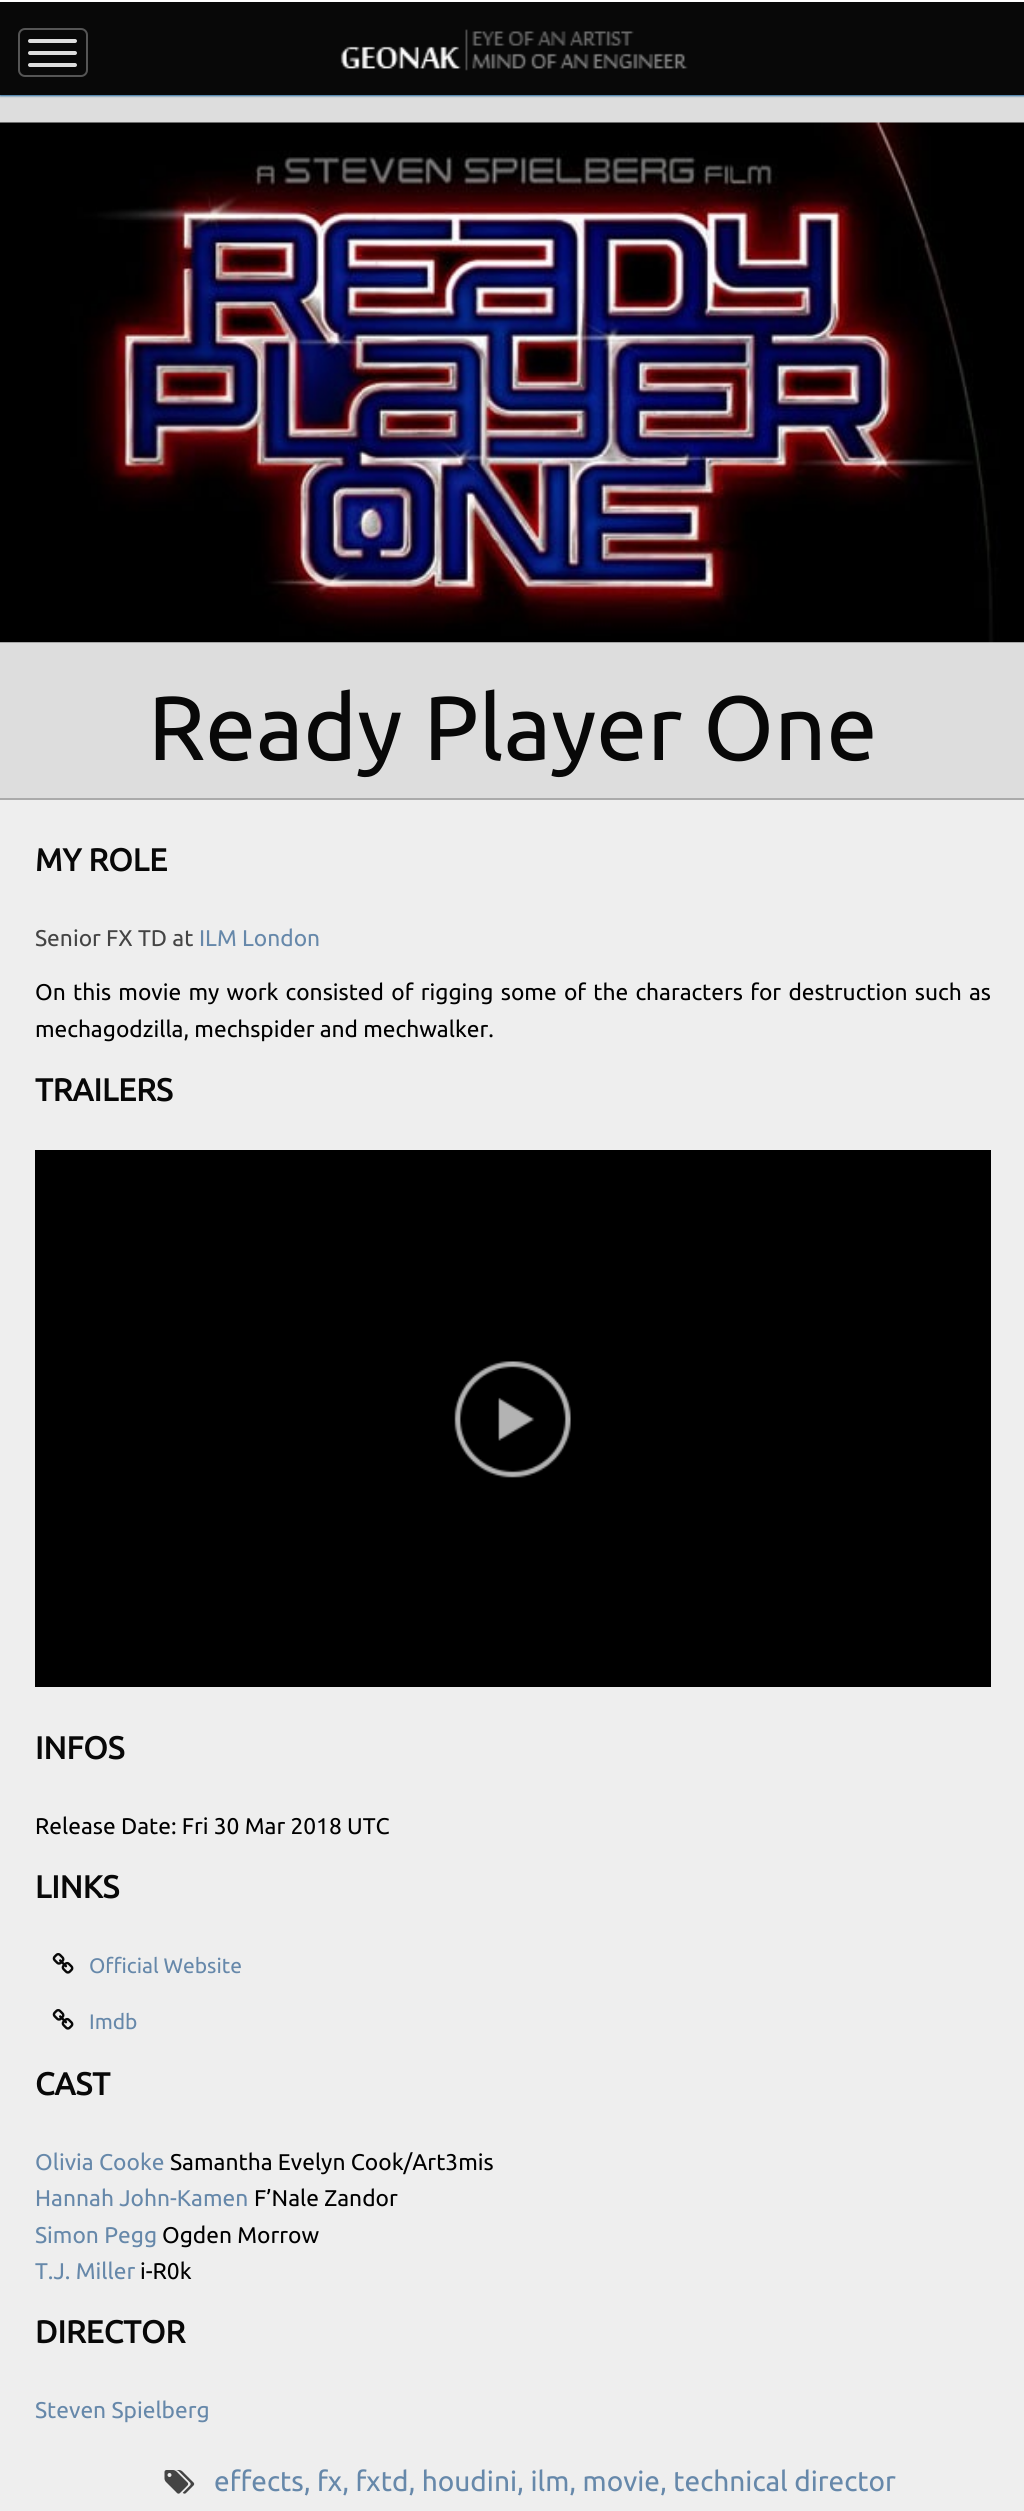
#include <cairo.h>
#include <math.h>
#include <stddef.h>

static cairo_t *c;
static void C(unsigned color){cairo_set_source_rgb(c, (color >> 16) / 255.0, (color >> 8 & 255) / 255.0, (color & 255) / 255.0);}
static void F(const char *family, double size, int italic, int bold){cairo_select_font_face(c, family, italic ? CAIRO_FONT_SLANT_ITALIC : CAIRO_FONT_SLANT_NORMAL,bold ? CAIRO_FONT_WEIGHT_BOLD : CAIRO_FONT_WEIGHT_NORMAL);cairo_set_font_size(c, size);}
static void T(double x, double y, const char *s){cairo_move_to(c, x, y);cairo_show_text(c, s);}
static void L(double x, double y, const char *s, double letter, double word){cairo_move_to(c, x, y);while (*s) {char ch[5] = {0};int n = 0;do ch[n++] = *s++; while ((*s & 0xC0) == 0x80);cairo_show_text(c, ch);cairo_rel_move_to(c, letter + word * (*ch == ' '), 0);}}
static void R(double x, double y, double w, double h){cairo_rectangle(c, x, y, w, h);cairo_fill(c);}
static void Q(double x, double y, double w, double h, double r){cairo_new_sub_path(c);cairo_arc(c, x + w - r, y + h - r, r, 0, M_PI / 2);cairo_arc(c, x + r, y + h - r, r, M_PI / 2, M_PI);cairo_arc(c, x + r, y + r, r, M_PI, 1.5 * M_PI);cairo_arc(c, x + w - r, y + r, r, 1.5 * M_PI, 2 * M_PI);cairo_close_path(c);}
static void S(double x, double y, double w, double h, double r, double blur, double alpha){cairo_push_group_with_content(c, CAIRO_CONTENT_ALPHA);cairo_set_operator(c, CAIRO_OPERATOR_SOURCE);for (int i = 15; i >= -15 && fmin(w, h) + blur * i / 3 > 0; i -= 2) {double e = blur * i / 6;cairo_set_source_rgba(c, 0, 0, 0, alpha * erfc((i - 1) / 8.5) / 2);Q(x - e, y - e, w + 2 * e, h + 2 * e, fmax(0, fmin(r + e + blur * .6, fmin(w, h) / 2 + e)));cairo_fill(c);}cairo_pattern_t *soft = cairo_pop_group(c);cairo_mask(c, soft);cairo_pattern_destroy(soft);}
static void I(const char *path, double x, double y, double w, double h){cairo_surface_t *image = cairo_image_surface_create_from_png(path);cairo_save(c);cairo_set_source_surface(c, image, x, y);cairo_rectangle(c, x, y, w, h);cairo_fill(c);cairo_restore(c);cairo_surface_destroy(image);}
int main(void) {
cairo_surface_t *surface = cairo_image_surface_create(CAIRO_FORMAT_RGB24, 1024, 2511);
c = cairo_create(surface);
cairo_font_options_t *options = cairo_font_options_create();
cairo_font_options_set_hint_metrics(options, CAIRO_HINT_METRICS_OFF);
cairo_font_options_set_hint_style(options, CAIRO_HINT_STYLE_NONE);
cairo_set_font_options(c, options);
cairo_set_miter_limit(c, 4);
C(0xeeeeee);
cairo_paint(c);
C(0x080808);
R(0,2,1024,93);
C(0xffffff);
R(0,0,1024,2);
C(0xdddddd);
R(0,95,1024,703);
cairo_save(c);
cairo_set_fill_rule(c,CAIRO_FILL_RULE_EVEN_ODD);
cairo_new_path(c);
cairo_move_to(c,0,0);
cairo_line_to(c,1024,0);
cairo_line_to(c,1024,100);
cairo_line_to(c,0,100);
cairo_close_path(c);
cairo_move_to(c,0,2);
cairo_line_to(c,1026,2);
cairo_line_to(c,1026,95);
cairo_line_to(c,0,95);
cairo_close_path(c);
cairo_clip(c);
C(0x226699);
S(0,4,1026,92,0,1,1);
cairo_restore(c);
Q(19,29,68,47,6);
C(0x555555);
cairo_stroke(c);
C(0xdddddd);
Q(28,39,49,4,2);
cairo_fill(c);
Q(28,51,49,4,2);
cairo_fill(c);
Q(28,63,49,4,2);
cairo_fill(c);
I("1.png",340,29,348,42);
C(0xaaaaaa);
R(0,798,1024,2);
I("2.png",0,122,1024,521);
F("Ubuntu",91,0,0);
C(0x080808);
T(148,760,"Ready Player One");
F("Ubuntu",31.5,0,1);
T(35,871,"MY ROLE");
F("Ubuntu",22.75,0,0);
C(0x444444);
T(35,946,"Senior FX TD at");
C(0x6688aa);
T(199,946,"ILM London");
C(0x000000);
L(35,1000,"On this movie my work consisted of rigging some of the characters for destruction such as",0,2);
T(35,1037,"mechagodzilla, mechspider and mechwalker.");
F("Ubuntu",31.5,0,1);
C(0x080808);
T(35,1101,"TRAILERS");
C(0x000000);
R(35,1150,956,537);
I("3.png",454,1361,117,117);
C(0x080808);
T(35,1759,"INFOS");
F("Ubuntu",22.75,0,0);
C(0x000000);
T(35,1834,"Release Date: Fri 30 Mar 2018 UTC");
F("Ubuntu",31.5,0,1);
C(0x080808);
T(35,1898,"LINKS");
I("4.png",52,1953,22,21);
F("Ubuntu",21,0,0);
C(0x6688aa);
T(89,1973,"Official Website");
I("4.png",52,2009,22,21);
T(89,2029,"Imdb");
F("Ubuntu",31.5,0,1);
C(0x080808);
T(35,2095,"CAST");
F("Ubuntu",22.75,0,0);
C(0x6688aa);
T(35,2170,"Olivia Cooke");
C(0x000000);
T(170,2170,"Samantha Evelyn Cook/Art3mis");
C(0x6688aa);
T(35,2206,"Hannah John-Kamen");
C(0x000000);
T(254,2206,"F’Nale Zandor");
C(0x6688aa);
T(35,2243,"Simon Pegg");
C(0x000000);
T(162,2243,"Ogden Morrow");
C(0x6688aa);
T(35,2279,"T.J. Miller");
C(0x000000);
T(140,2279,"i-R0k");
F("Ubuntu",31.5,0,1);
C(0x080808);
T(35,2343,"DIRECTOR");
F("Ubuntu",22.75,0,0);
C(0x6688aa);
T(35,2418,"Steven Spielberg");
I("5.png",164,2470,31,24);
F("Ubuntu",28,0,0);
T(214,2491,"effects, fx, fxtd, houdini, ilm, movie, technical director");
cairo_surface_write_to_png(surface, "o.png");
cairo_font_options_destroy(options);
cairo_destroy(c);
cairo_surface_destroy(surface);
return 0;
}
